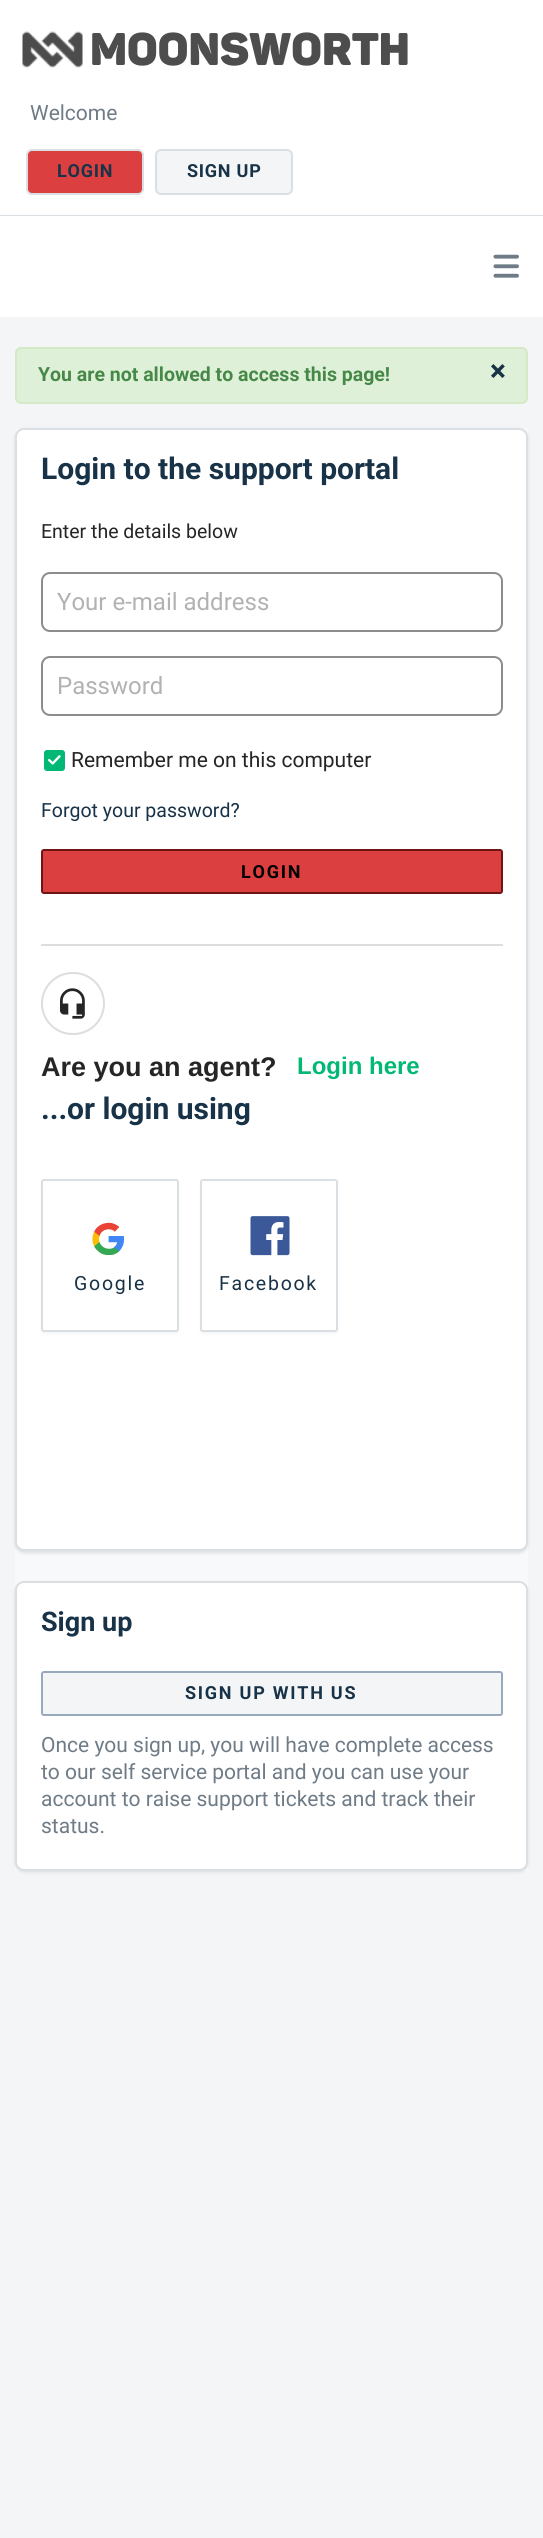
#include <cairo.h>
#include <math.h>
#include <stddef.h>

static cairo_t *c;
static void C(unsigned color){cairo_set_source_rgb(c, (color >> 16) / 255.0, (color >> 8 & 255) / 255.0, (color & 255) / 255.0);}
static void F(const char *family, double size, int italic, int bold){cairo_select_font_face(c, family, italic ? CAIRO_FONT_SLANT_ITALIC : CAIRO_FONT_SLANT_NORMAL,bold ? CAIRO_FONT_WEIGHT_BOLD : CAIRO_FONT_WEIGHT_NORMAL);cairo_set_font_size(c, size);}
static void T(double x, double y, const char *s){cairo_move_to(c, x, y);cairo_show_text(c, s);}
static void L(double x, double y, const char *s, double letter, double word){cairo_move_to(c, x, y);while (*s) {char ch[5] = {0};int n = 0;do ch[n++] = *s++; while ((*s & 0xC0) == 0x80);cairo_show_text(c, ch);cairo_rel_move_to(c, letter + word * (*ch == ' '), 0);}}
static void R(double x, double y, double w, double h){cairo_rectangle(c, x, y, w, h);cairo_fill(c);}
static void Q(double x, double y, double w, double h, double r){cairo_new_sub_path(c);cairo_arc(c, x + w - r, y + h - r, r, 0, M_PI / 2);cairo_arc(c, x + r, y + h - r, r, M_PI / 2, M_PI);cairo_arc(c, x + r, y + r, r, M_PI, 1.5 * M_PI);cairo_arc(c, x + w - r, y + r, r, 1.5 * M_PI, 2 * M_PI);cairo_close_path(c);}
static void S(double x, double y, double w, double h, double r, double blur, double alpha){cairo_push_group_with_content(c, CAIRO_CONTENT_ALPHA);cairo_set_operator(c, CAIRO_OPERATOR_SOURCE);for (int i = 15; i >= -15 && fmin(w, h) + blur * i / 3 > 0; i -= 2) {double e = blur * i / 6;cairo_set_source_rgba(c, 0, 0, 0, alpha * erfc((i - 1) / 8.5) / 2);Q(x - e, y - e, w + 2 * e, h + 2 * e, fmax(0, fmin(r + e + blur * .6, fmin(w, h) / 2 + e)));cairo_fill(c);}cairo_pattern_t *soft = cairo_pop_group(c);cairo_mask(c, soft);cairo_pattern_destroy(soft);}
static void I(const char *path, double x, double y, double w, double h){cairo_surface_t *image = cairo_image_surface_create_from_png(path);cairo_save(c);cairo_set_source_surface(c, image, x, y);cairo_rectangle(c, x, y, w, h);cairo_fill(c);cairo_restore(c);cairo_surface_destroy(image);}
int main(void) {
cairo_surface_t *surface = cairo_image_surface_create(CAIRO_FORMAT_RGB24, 543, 2538);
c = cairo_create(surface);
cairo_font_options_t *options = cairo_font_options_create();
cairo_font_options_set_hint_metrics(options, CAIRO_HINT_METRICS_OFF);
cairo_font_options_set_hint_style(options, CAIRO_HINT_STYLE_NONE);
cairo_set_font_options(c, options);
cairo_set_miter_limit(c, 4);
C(0xf3f5f7);
cairo_paint(c);
C(0xffffff);
R(0,0,543,215);
C(0xdadfe3);
R(0,215,543,1);
I("1.png",22,31,61,37);
F("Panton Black",45,0,0);
C(0x4d4d4d);
T(90,65,"Moonsworth");
F("Roboto",21,0,0);
C(0x6f7c87);
T(30,120,"Welcome");
C(0xdb3f40);
Q(27,150,116,44,5);
cairo_fill_preserve(c);
C(0xdadfe3);
cairo_stroke(c);
F("Roboto",18,0,1);
C(0x183247);
L(57,177,"LOGIN",.75,0);
C(0xf3f5f7);
Q(156,150,136,44,5);
cairo_fill_preserve(c);
C(0xdadfe3);
cairo_stroke(c);
C(0x183247);
L(187,177,"SIGN UP",.75,0);
C(0xffffff);
R(0,216,543,101);
I("2.png",493,254,26,24);
C(0xdff0d8);
Q(16,348,511,55,5);
cairo_fill_preserve(c);
C(0xd6e9c6);
cairo_stroke(c);
F("Roboto",19.5,0,1);
C(0x468847);
T(38,381,"You are not allowed to access this page!");
F("Roboto",30,0,1);
C(0x183247);
T(490,381,"×");
C(0xf8f9fa);
R(15,428,513,1443);
C(0x3f3f44);
S(15,429,513,1124,9,1.5,.15);
C(0xffffff);
Q(16,429,511,1121,8);
cairo_fill_preserve(c);
C(0xdadfe3);
cairo_stroke(c);
C(0x183247);
T(41,479,"Login to the support portal");
F("Roboto",19.5,0,0);
C(0x262525);
T(41,538,"Enter the details below");
Q(42,573,460,58,8);
C(0x8c8c8c);
cairo_stroke(c);
F("Roboto",24,0,0);
C(0xb2b2b2);
T(57,610,"Your e-mail address");
Q(42,657,460,58,8);
C(0x8c8c8c);
cairo_stroke(c);
C(0xb2b2b2);
T(57,694,"Password");
C(0x02b875);
Q(45,751,19,19,2);
cairo_fill_preserve(c);
cairo_stroke(c);
I("3.png",48,755,13,10);
F("Roboto",21,0,0);
C(0x262525);
T(71,767,"Remember me on this computer");
F("Roboto",19.5,0,0);
C(0x183247);
T(41,817,"Forgot your password?");
C(0xdb3f40);
Q(42,850,460,43,2);
cairo_fill_preserve(c);
C(0x6d1415);
cairo_stroke(c);
F("Roboto",18,0,1);
C(0x000000);
L(241,878,"LOGIN",1.75,0);
C(0xdddddd);
R(41,944,462,2);
Q(42,973,62,61,30.5);
cairo_stroke(c);
I("4.png",60,988,25,31);
F("Liberation Sans",27,0,1);
C(0x262525);
T(41,1076,"Are you an agent?");
F("Liberation Sans",24,0,1);
C(0x02b875);
T(297,1074,"Login here");
F("Roboto",30,0,1);
C(0x183247);
T(41,1119,"...or login using");
C(0x000000);
S(41,1181,138,153,3,1.5,.04);
C(0xffffff);
Q(42,1180,136,151,2);
cairo_fill_preserve(c);
C(0xdadfe3);
cairo_stroke(c);
I("5.png",92,1222,33,33);
F("Roboto",19.5,0,0);
C(0x183247);
L(74,1290,"Google",1.75,0);
C(0x000000);
S(200,1181,138,153,3,1.5,.04);
C(0xffffff);
Q(201,1180,136,151,2);
cairo_fill_preserve(c);
C(0xdadfe3);
cairo_stroke(c);
I("6.png",250,1216,40,40);
C(0x183247);
L(219,1290,"Facebook",1.75,0);
C(0x3f3f44);
S(15,1583,513,289,9,1.5,.15);
C(0xffffff);
Q(16,1582,511,288,8);
cairo_fill_preserve(c);
C(0xdadfe3);
cairo_stroke(c);
F("Roboto",27,0,1);
C(0x183247);
T(41,1631,"Sign up");
C(0xf3f5f7);
Q(42,1672,460,43,2);
cairo_fill_preserve(c);
C(0x97a9ba);
cairo_stroke(c);
F("Roboto",18,0,1);
C(0x183247);
L(185,1699,"SIGN UP WITH US",1.75,0);
F("Roboto",21,0,0);
C(0x6f7c87);
T(41,1752,"Once you sign up, you will have complete access");
T(41,1779,"to our self service portal and you can use your");
T(41,1806,"account to raise support tickets and track their");
T(41,1833,"status.");
cairo_surface_write_to_png(surface, "o.png");
cairo_font_options_destroy(options);
cairo_destroy(c);
cairo_surface_destroy(surface);
return 0;
}
